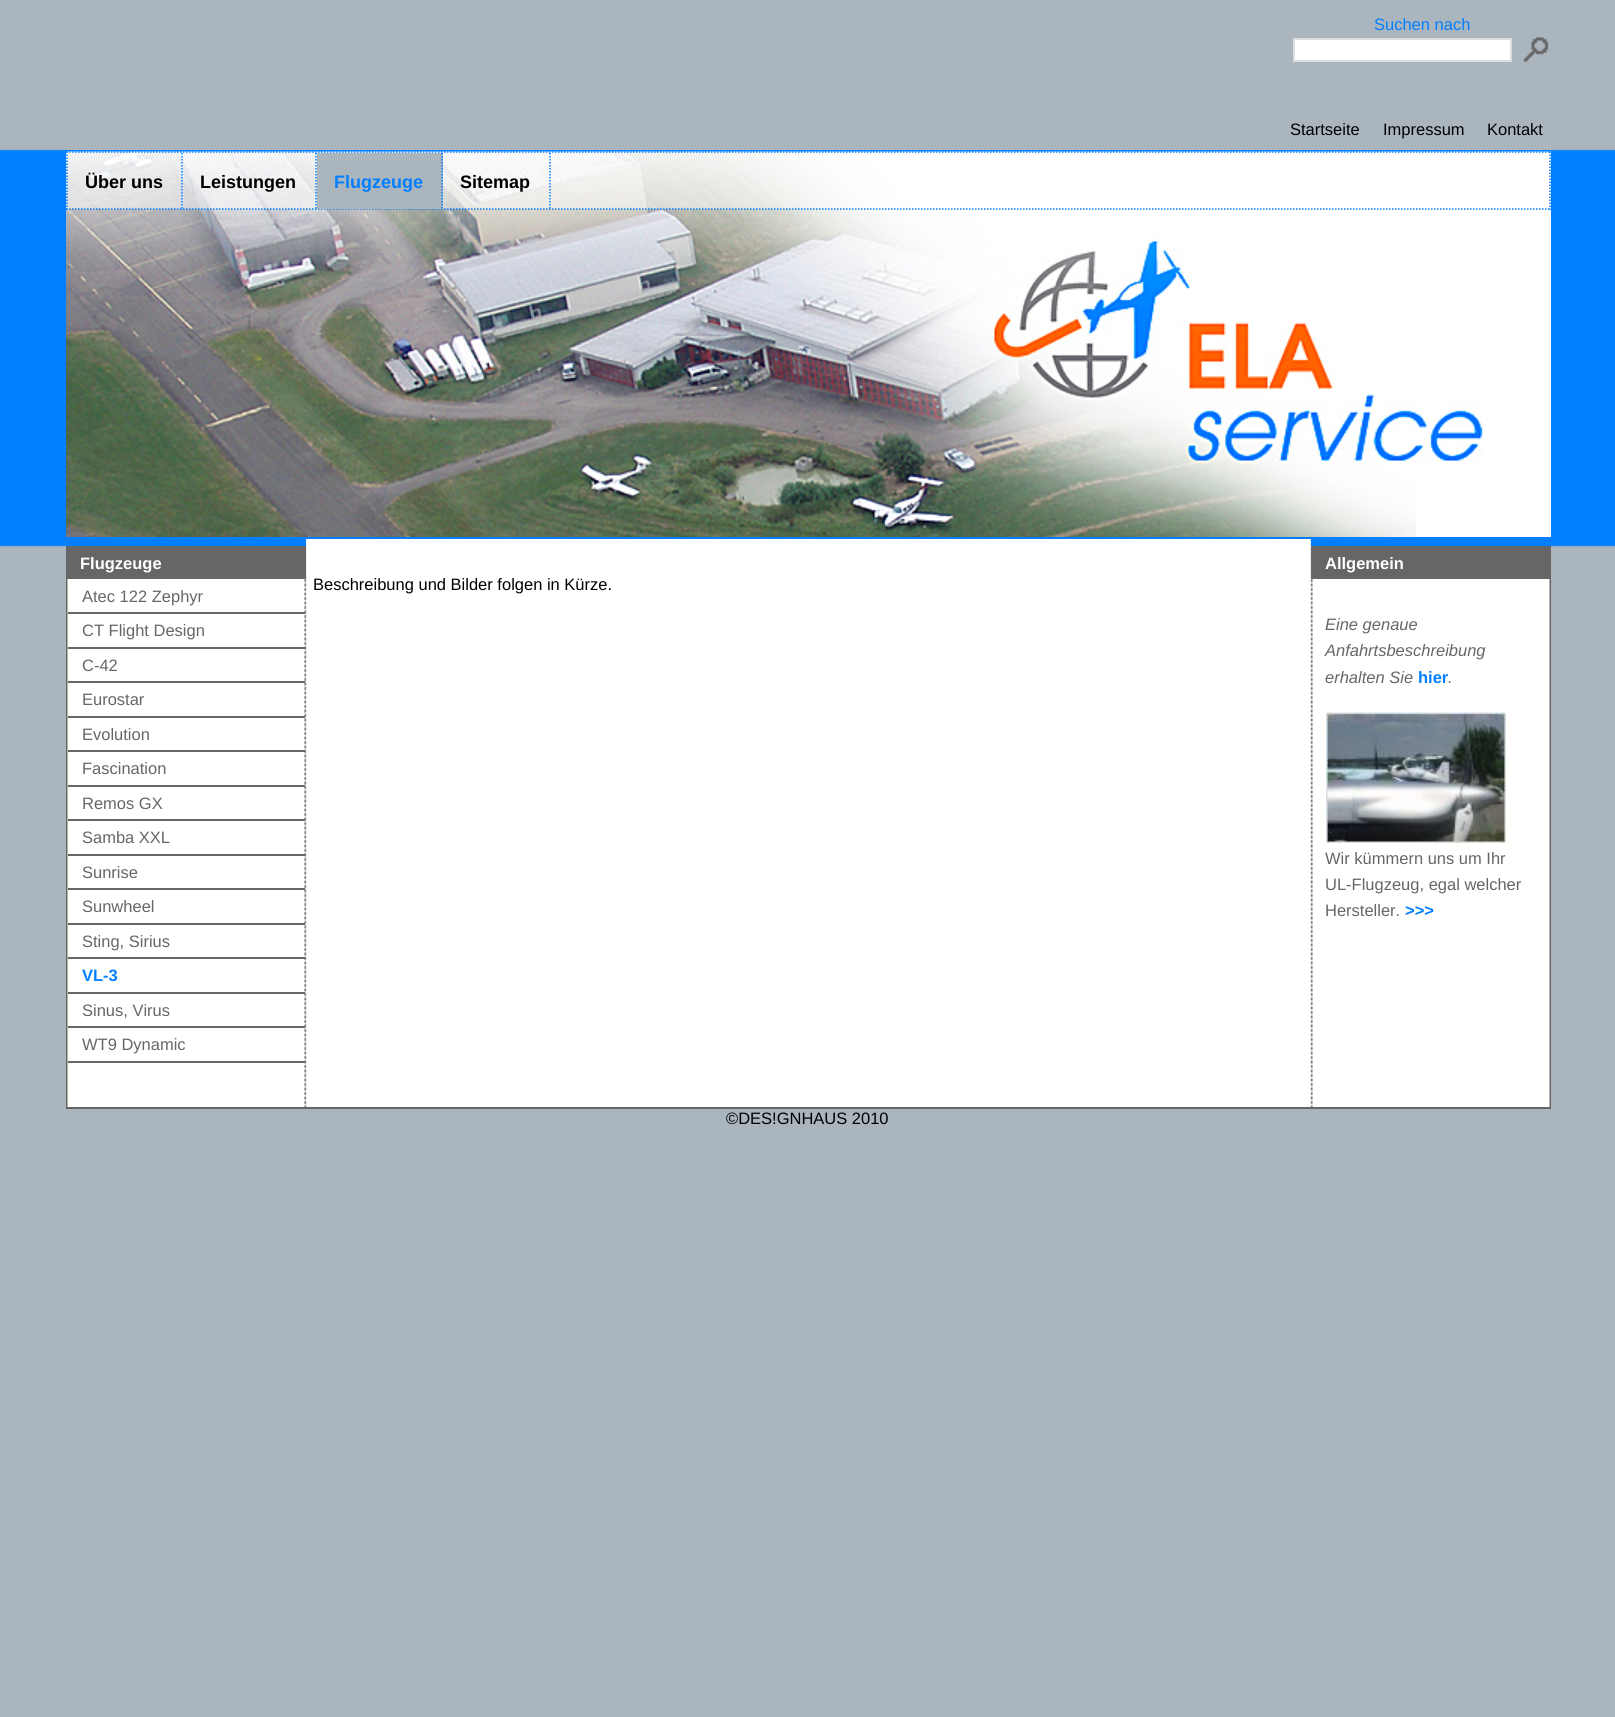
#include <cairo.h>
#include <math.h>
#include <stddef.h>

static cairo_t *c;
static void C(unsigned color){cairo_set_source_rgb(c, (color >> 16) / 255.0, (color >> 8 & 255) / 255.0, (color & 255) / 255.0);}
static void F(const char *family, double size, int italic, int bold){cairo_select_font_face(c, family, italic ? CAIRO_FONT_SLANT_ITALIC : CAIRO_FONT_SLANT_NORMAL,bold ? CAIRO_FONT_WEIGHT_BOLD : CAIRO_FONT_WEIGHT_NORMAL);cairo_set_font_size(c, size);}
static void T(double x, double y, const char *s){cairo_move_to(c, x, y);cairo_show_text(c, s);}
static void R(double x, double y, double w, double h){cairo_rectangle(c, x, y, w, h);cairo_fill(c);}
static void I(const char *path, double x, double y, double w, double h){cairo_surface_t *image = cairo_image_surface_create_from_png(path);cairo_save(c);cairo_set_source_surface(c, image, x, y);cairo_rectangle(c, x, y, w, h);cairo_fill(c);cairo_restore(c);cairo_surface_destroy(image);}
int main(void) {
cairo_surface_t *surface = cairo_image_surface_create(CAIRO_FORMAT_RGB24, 1615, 1717);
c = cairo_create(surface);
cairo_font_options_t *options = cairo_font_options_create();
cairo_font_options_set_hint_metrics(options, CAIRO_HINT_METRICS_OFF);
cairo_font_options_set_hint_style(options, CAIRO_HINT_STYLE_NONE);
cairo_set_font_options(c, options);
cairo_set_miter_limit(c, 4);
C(0xaab5be);
cairo_paint(c);
I("1.png",0,149,1615,398);
I("2.png",66,539,1485,568);
F("Liberation Sans",16.5,0,0);
C(0x027fff);
T(1374,30,"Suchen nach");
C(0xffffff);
cairo_rectangle(c,1294,39,217,22);
cairo_fill_preserve(c);
C(0xdedede);
cairo_stroke(c);
I("3.png",1523,37,26,25);
C(0xaab5be);
R(66,149,1485,1);
C(0x000000);
T(1290,135,"Startseite");
T(1383,135,"Impressum");
T(1487,135,"Kontakt");
I("4.png",66,152,1485,385);
C(0x027fff);
R(66,150,1485,1);
cairo_set_source_rgba(c,1,1,1,0.5);
R(66,151,1485,58);
cairo_new_path(c);
cairo_move_to(c,66,152);
cairo_line_to(c,1551,152);
C(0x027fff);
cairo_set_line_width(c,1.5);
cairo_set_dash(c,(double[]){1.5,1.5},2,0);
cairo_stroke(c);
cairo_new_path(c);
cairo_move_to(c,1550,151.5);
cairo_line_to(c,1550,210);
cairo_stroke(c);
cairo_new_path(c);
cairo_move_to(c,66,209);
cairo_line_to(c,1551,209);
cairo_stroke(c);
cairo_new_path(c);
cairo_move_to(c,67,151.5);
cairo_line_to(c,67,210);
cairo_stroke(c);
F("Liberation Sans",18,0,1);
C(0x000000);
T(85,188,"Über uns");
cairo_new_path(c);
cairo_move_to(c,182,153);
cairo_line_to(c,182,208.5);
C(0x027fff);
cairo_stroke(c);
C(0x000000);
T(200,188,"Leistungen");
cairo_new_path(c);
cairo_move_to(c,316,153);
cairo_line_to(c,316,208.5);
C(0x027fff);
cairo_stroke(c);
C(0xaab5be);
R(317,153,126,56);
C(0x027fff);
T(334,188,"Flugzeuge");
cairo_new_path(c);
cairo_move_to(c,442,153);
cairo_line_to(c,442,208.5);
cairo_stroke(c);
C(0x000000);
T(460,188,"Sitemap");
cairo_new_path(c);
cairo_move_to(c,550,153);
cairo_line_to(c,550,208.5);
C(0x027fff);
cairo_stroke(c);
R(66,539,240,7);
C(0x666666);
R(67,546,239,33);
F("Liberation Sans",16.5,0,1);
C(0xffffff);
T(80,569,"Flugzeuge");
C(0x666666);
R(68,612,237,2);
F("Liberation Sans",16.5,0,0);
T(82,602,"Atec 122 Zephyr");
R(68,647,237,2);
T(82,636,"CT Flight Design");
R(68,681,237,2);
T(82,671,"C-42");
R(68,716,237,2);
T(82,705,"Eurostar");
R(68,750,237,2);
T(82,740,"Evolution");
R(68,785,237,2);
T(82,774,"Fascination");
R(68,819,237,2);
T(82,809,"Remos GX");
R(68,854,237,2);
T(82,843,"Samba XXL");
R(68,888,237,2);
T(82,878,"Sunrise");
R(68,923,237,2);
T(82,912,"Sunwheel");
R(68,957,237,2);
T(82,947,"Sting, Sirius");
R(68,992,237,2);
F("Liberation Sans",16.5,0,1);
C(0x027fff);
T(82,981,"VL-3");
C(0x666666);
R(68,1026,237,2);
F("Liberation Sans",16.5,0,0);
T(82,1016,"Sinus, Virus");
R(68,1061,237,2);
T(82,1050,"WT9 Dynamic");
C(0x000000);
T(313,590,"Beschreibung und Bilder folgen in Kürze.");
C(0x027fff);
R(1311,539,240,7);
C(0x666666);
R(1311,546,239,33);
F("Liberation Sans",16.5,0,1);
C(0xffffff);
T(1325,569,"Allgemein");
F("Liberation Sans",16.5,1,0);
C(0x666666);
T(1325,630,"Eine genaue");
T(1325,656,"Anfahrtsbeschreibung");
T(1325,683,"erhalten Sie");
F("Liberation Sans",16.5,0,1);
C(0x027fff);
T(1418,683,"hier");
F("Liberation Sans",16.5,1,0);
C(0x666666);
T(1448,683,".");
I("5.png",1326,712,180,131);
F("Liberation Sans",16.5,0,0);
T(1325,864,"Wir kümmern uns um Ihr");
T(1325,890,"UL-Flugzeug, egal welcher");
T(1325,916,"Hersteller.");
F("Liberation Sans",16.5,0,1);
C(0x027fff);
T(1405,916,">>>");
C(0x666666);
R(66,1107,1485,2);
F("Liberation Sans",16.5,0,0);
C(0x000000);
T(726,1124,"©DES!GNHAUS 2010");
cairo_surface_write_to_png(surface, "o.png");
cairo_font_options_destroy(options);
cairo_destroy(c);
cairo_surface_destroy(surface);
return 0;
}
